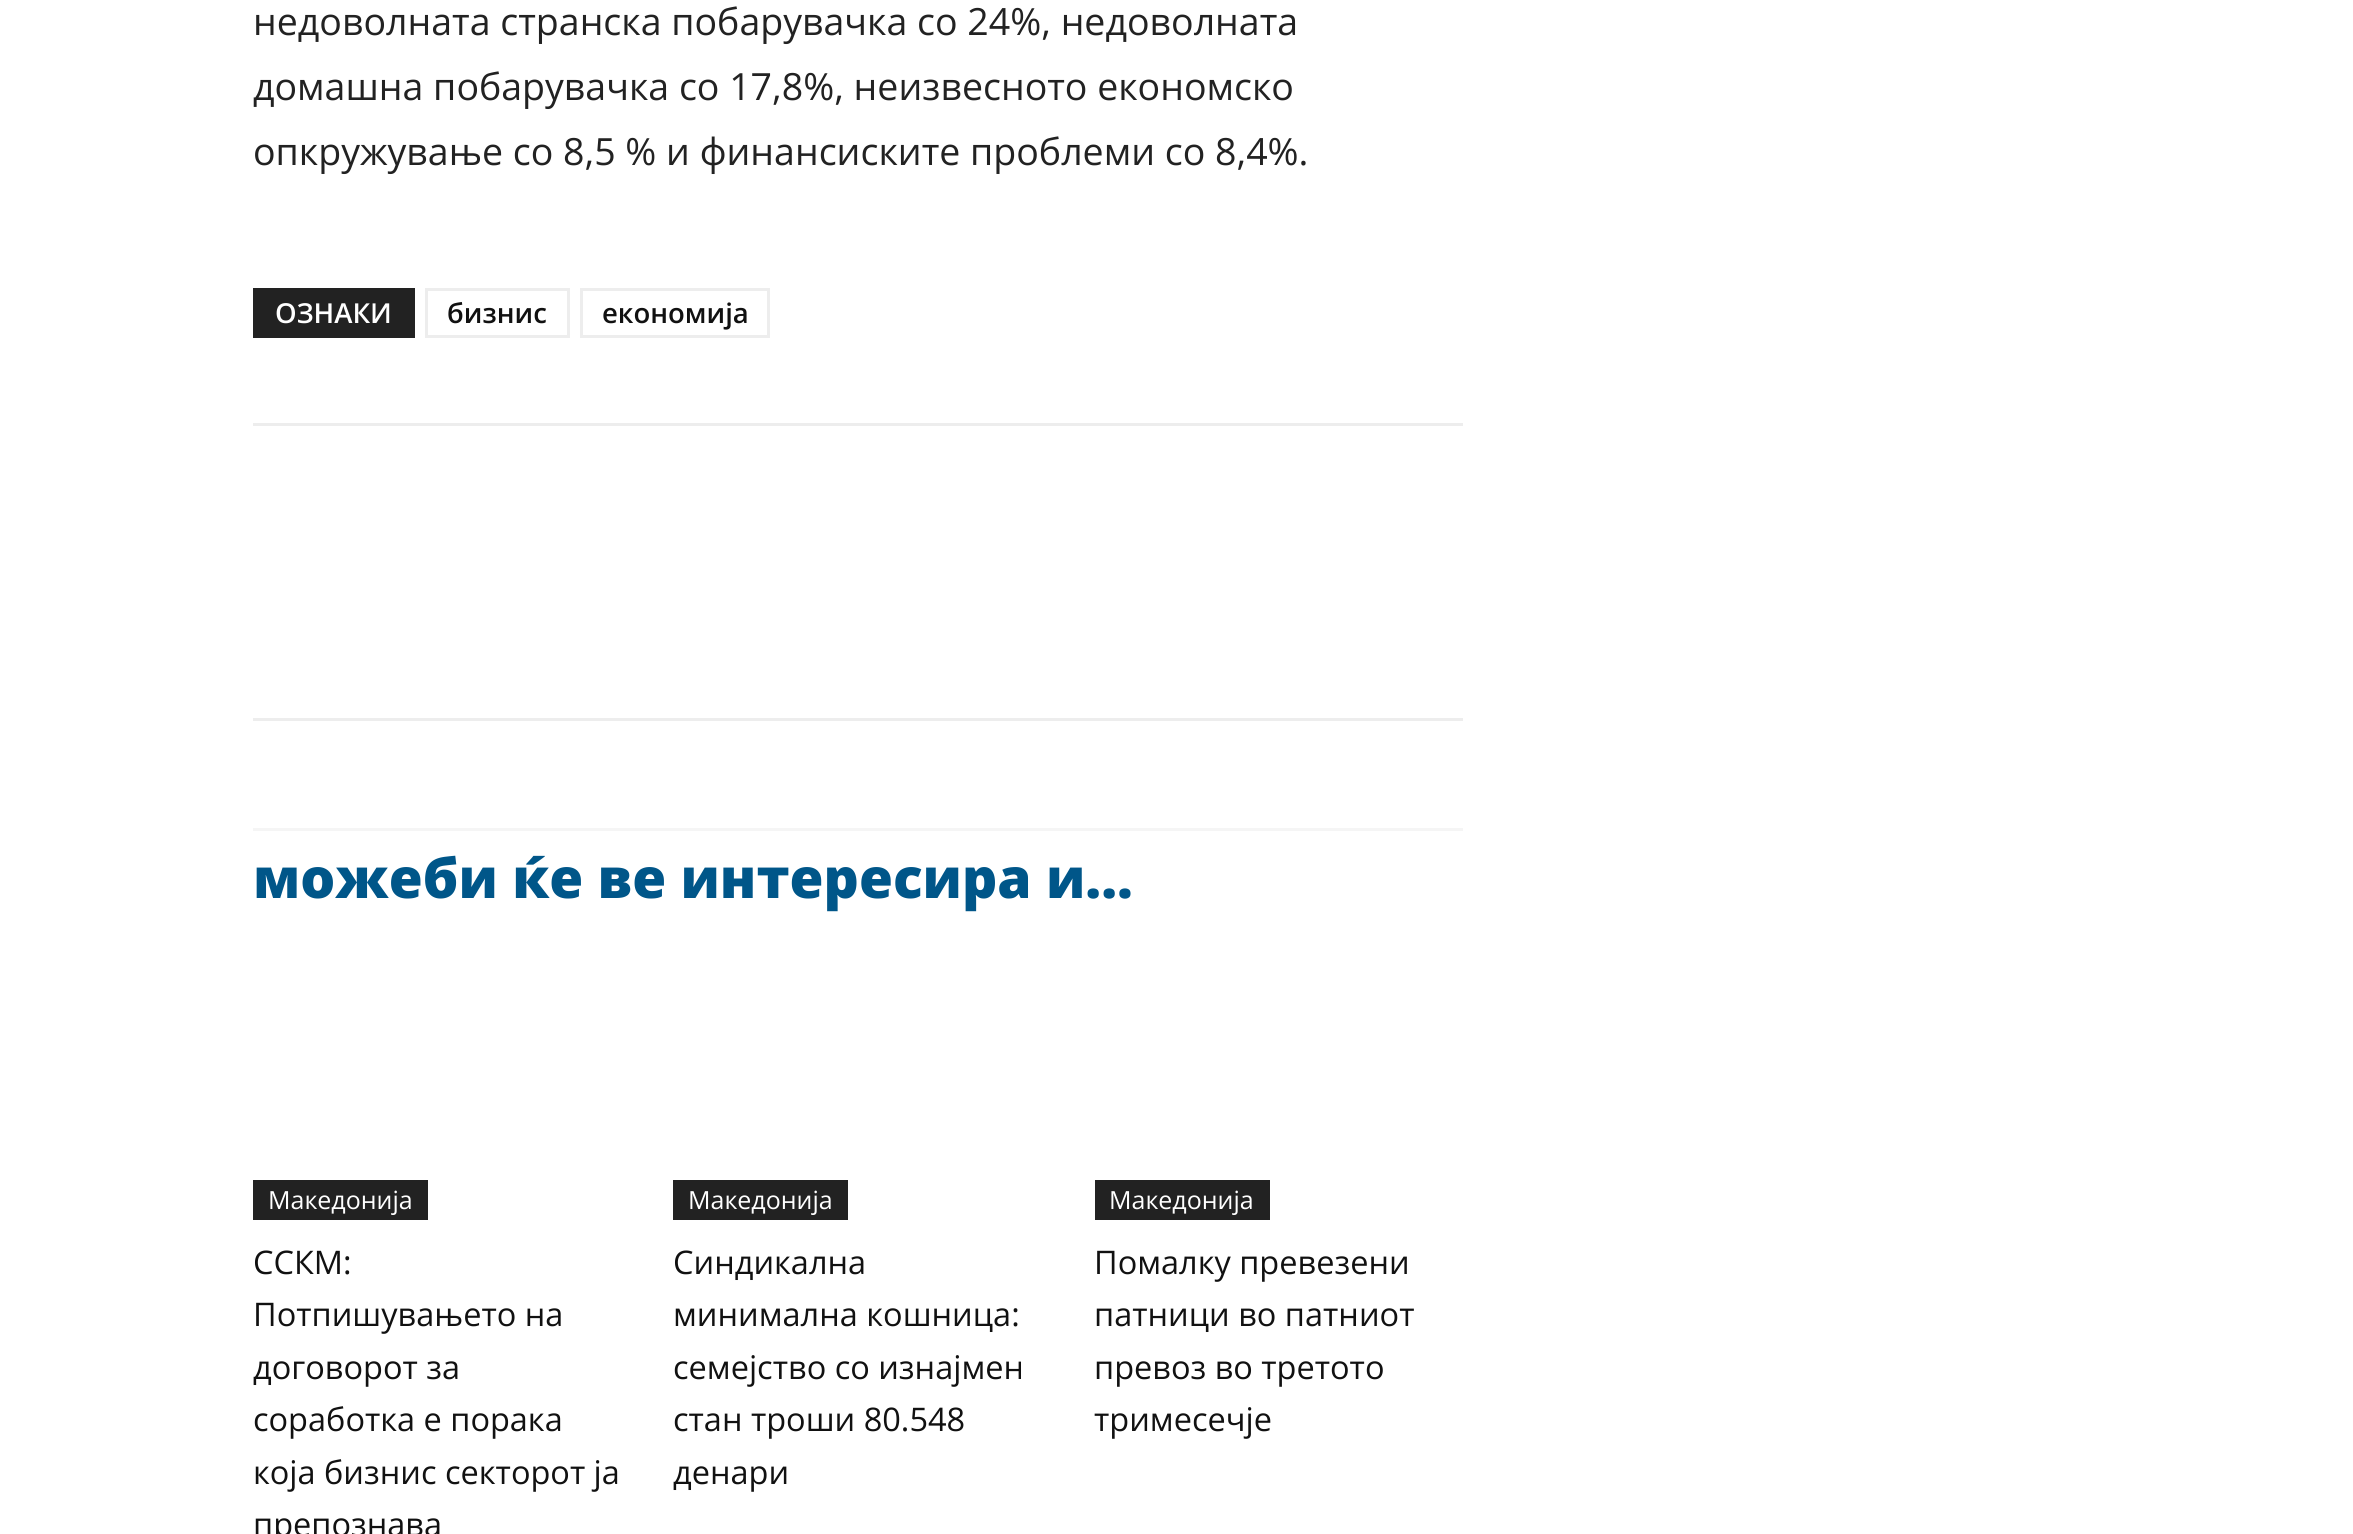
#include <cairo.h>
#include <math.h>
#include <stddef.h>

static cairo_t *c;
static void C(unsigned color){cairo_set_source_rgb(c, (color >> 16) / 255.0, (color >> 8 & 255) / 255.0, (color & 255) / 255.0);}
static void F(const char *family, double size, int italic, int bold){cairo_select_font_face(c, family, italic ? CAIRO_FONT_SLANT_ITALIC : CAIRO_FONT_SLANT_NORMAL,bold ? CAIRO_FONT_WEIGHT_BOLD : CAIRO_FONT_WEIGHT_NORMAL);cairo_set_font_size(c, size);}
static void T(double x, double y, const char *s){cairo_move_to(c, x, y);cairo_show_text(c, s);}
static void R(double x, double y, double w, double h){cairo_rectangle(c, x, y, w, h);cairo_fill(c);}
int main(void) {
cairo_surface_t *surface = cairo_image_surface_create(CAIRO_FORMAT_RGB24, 2353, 1534);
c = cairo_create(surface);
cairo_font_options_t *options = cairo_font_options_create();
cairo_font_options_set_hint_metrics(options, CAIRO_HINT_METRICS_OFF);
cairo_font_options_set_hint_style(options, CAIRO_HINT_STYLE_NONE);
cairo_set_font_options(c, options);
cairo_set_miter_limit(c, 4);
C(0xffffff);
cairo_paint(c);
F("Open Sans",37.5,0,0);
C(0x222222);
T(253,35,"недоволната странска побарувачка со 24%, недоволната");
T(253,100,"домашна побарувачка со 17,8%, неизвесното економско");
T(253,165,"опкружување со 8,5 % и финансиските проблеми со 8,4%.");
R(253,288,162,50);
F("Open Sans SemiBold",27.5,0,0);
C(0xffffff);
T(275,323,"ОЗНАКИ");
cairo_rectangle(c,426.5,289.5,142,47);
C(0xededed);
cairo_set_line_width(c,3);
cairo_stroke(c);
C(0x111111);
T(447,323,"бизнис");
cairo_rectangle(c,581.5,289.5,187,47);
C(0xededed);
cairo_stroke(c);
C(0x111111);
T(602,323,"економија");
C(0xededed);
R(253,423,1210,3);
R(253,718,1210,3);
C(0xf5f5f5);
R(253,828,1210,3);
F("Open Sans ExtraBold",55,0,0);
C(0x005689);
T(253,898,"можеби ќе ве интересира и...");
C(0x222222);
R(253,1180,175,40);
F("Open Sans",25,0,0);
C(0xffffff);
T(268,1209,"Македонија");
F("Open Sans",32.5,0,0);
C(0x111111);
T(253,1274,"ССКМ:");
T(253,1326,"Потпишувањето на");
T(253,1379,"договорот за");
T(253,1431,"соработка е порака");
T(253,1484,"која бизнис секторот ја");
T(253,1536,"препознава");
C(0x222222);
R(673,1180,175,40);
F("Open Sans",25,0,0);
C(0xffffff);
T(688,1209,"Македонија");
F("Open Sans",32.5,0,0);
C(0x111111);
T(673,1274,"Синдикална");
T(673,1326,"минимална кошница:");
T(673,1379,"семејство со изнајмен");
T(673,1431,"стан троши 80.548");
T(673,1484,"денари");
C(0x222222);
R(1095,1180,175,40);
F("Open Sans",25,0,0);
C(0xffffff);
T(1109,1209,"Македонија");
F("Open Sans",32.5,0,0);
C(0x111111);
T(1094,1274,"Помалку превезени");
T(1094,1326,"патници во патниот");
T(1094,1379,"превоз во третото");
T(1094,1431,"тримесечје");
cairo_surface_write_to_png(surface, "o.png");
cairo_font_options_destroy(options);
cairo_destroy(c);
cairo_surface_destroy(surface);
return 0;
}
